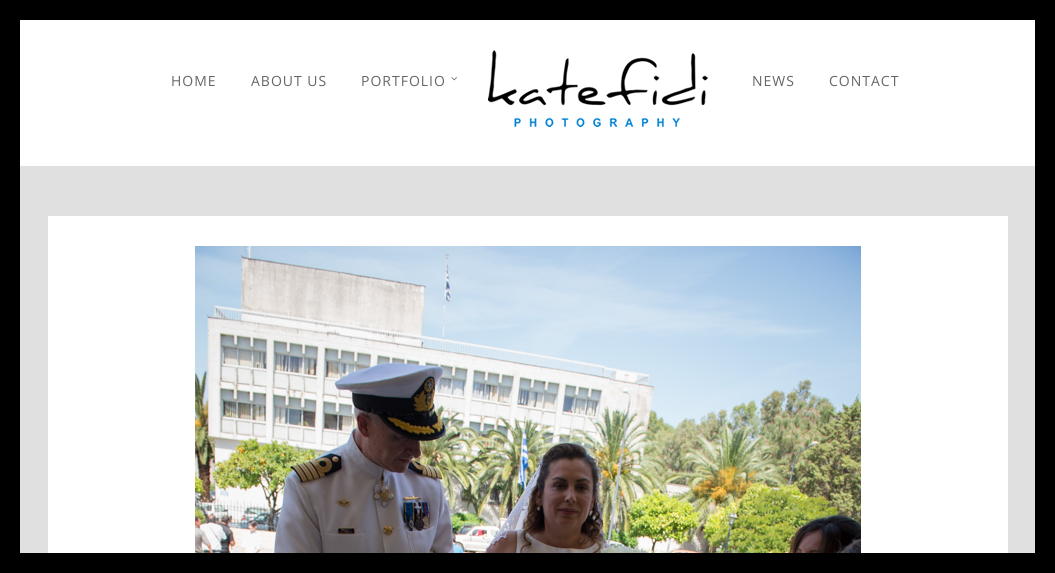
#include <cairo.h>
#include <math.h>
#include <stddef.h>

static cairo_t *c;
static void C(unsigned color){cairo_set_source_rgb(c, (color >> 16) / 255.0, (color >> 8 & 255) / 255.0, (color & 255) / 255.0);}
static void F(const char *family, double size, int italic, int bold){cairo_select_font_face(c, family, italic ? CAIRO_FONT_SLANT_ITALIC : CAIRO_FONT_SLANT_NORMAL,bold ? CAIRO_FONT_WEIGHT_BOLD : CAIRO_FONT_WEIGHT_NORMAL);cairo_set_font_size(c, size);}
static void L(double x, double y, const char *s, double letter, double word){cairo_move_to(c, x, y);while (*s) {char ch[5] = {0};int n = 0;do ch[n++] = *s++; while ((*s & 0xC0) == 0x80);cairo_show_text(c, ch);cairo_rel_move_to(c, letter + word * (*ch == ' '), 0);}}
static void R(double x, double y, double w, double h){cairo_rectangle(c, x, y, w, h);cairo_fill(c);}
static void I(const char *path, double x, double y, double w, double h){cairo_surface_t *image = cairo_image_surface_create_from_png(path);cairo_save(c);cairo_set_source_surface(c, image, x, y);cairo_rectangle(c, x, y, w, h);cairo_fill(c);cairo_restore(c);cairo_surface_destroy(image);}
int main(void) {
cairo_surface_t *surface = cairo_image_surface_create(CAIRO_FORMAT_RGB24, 1055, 573);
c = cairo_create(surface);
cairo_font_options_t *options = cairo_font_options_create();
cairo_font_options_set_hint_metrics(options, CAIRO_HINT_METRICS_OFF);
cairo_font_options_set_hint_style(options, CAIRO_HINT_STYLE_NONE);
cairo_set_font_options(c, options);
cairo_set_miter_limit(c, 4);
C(0xffffff);
cairo_paint(c);
C(0x000000);
R(0,0,1055,20);
R(0,20,20,553);
F("Open Sans",14,0,0);
C(0x666666);
L(171,86,"HOME",1,0);
L(251,86,"ABOUT US",1,0);
L(361,86,"PORTFOLIO",1,0);
I("1.png",451,77,6,4);
I("2.png",488,50,220,77);
L(752,86,"NEWS",1,0);
L(829,86,"CONTACT",1,0);
C(0xe0e0e0);
R(20,166,1015,387);
C(0xffffff);
R(48,216,960,337);
I("3.png",195,246,666,307);
C(0x000000);
R(1035,20,20,553);
R(20,553,1015,20);
cairo_surface_write_to_png(surface, "o.png");
cairo_font_options_destroy(options);
cairo_destroy(c);
cairo_surface_destroy(surface);
return 0;
}
